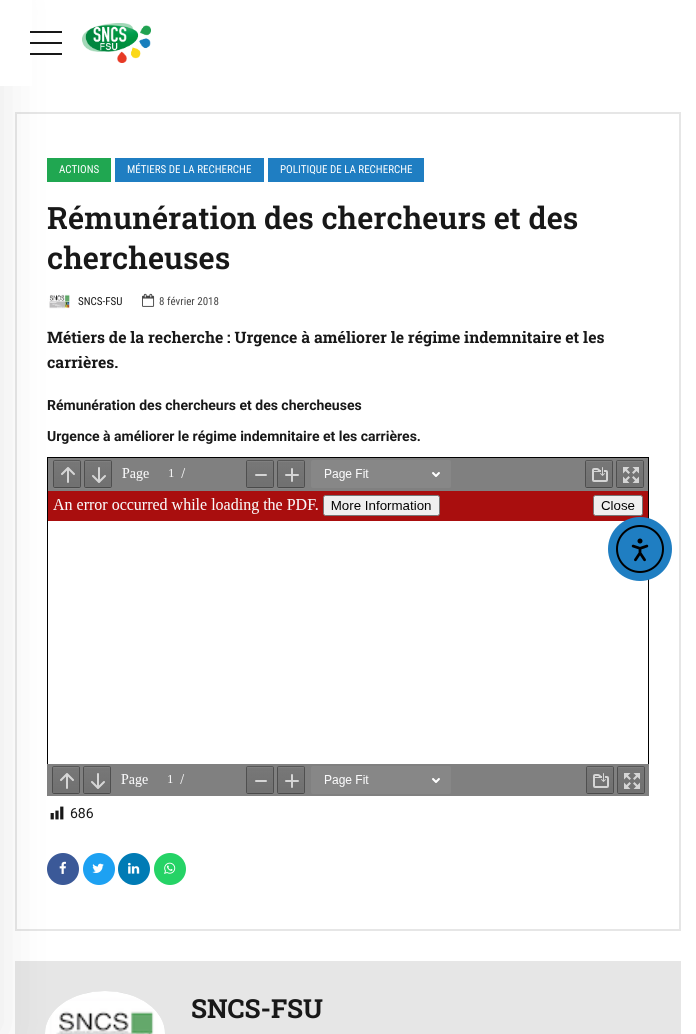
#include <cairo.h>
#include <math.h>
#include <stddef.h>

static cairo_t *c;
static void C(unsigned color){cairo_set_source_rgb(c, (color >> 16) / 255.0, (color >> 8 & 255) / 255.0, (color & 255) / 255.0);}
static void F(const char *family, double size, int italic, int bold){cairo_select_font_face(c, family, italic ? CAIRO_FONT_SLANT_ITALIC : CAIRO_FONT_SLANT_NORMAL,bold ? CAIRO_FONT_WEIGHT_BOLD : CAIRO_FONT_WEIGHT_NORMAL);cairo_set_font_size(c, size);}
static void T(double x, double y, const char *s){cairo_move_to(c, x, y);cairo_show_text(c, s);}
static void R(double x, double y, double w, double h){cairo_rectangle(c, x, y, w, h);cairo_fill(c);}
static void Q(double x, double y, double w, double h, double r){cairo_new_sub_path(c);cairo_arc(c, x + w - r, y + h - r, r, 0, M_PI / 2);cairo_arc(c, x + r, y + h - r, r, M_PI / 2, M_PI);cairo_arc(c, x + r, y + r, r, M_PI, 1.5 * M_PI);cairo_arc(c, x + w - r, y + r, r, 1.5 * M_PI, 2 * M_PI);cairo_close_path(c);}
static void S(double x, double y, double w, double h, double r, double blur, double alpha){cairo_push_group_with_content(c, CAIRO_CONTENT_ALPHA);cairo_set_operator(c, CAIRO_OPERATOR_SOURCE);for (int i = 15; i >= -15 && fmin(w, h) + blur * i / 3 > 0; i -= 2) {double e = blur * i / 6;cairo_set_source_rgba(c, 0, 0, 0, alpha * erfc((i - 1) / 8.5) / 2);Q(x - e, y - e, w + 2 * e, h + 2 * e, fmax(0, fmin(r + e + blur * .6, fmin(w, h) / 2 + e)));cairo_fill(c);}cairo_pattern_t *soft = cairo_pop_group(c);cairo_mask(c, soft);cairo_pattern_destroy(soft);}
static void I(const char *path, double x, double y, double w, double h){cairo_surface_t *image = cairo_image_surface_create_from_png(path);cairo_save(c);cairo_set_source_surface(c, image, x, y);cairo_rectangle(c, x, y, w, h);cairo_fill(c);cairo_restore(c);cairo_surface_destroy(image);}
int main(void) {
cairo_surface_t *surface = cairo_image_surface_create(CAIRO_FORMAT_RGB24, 696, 1034);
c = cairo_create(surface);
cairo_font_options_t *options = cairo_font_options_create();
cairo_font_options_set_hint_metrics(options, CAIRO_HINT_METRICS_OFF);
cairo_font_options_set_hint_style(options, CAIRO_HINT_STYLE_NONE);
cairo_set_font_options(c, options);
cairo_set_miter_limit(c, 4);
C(0xffffff);
cairo_paint(c);
cairo_rectangle(c,16,113,664,817);
C(0xe6e6e6);
cairo_stroke(c);
C(0x20a751);
R(47,158,64,24);
I("2.png",47,289,25,25);
I("4.png",47,457,602,339);
I("5.png",50,806,14,14);
C(0x3b5998);
cairo_arc(c,63,869,16,0,2 * M_PI);
cairo_fill(c);
I("6.png",59,861,7,13);
C(0xe6e6e6);
R(15,961,666,73);
C(0xcfcfcf);
cairo_new_path(c);
cairo_move_to(c,105,991);
cairo_curve_to(c,138,991,165,1010,165,1033.5);
cairo_curve_to(c,165,1057,138,1076,105,1076);
cairo_curve_to(c,72,1076,45,1057,45,1033.5);
cairo_curve_to(c,45,1010,72,991,105,991);
cairo_close_path(c);
cairo_fill(c);
I("10.png",45,991,120,43);
C(0x000000);
S(-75,0,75,1034,0,25,.1);
C(0xffffff);
R(0,0,32,86);
C(0x181818);
R(30,31,32,2);
R(30,42,32,2);
R(30,53,32,2);
I("1.png",82,23,69,40);
F("Roboto Condensed",11,0,0);
C(0xffffff);
T(59,173,"ACTIONS");
C(0x1f7ec2);
R(115,158,149,24);
C(0xffffff);
T(127,173,"MÉTIERS DE LA RECHERCHE");
C(0x1f7ec2);
R(268,158,156,24);
C(0xffffff);
T(280,173,"POLITIQUE DE LA RECHERCHE");
F("Roboto Slab SemiBold",30.75,0,0);
C(0x181818);
T(47,229,"Rémunération des chercheurs et des");
T(47,269,"chercheuses");
F("Roboto Condensed",11,0,0);
T(78,305,"SNCS-FSU");
I("3.png",142,293,13,14);
C(0x464646);
T(159,305,"8 février 2018");
F("Roboto Slab",15.75,0,1);
C(0x181818);
T(47,343,"Métiers de la recherche : Urgence à améliorer le régime indemnitaire et les");
T(47,368,"carrières.");
F("Roboto",14,0,1);
T(47,410,"Rémunération des chercheurs et des chercheuses");
T(47,441,"Urgence à améliorer le régime indemnitaire et les carrières.");
F("Roboto",14,0,0);
T(70,818,"686");
C(0x1da1f2);
cairo_new_path(c);
cairo_arc(c,99,869,16,0,2 * M_PI);
cairo_fill(c);
I("7.png",92,863,12,10);
C(0x007bb5);
cairo_arc(c,134,869,16,0,2 * M_PI);
cairo_fill(c);
I("8.png",128,862,12,12);
C(0x25d366);
cairo_arc(c,170,869,16,0,2 * M_PI);
cairo_fill(c);
I("9.png",164,862,12,12);
F("Roboto Slab",26.25,0,1);
C(0x181818);
T(191,1018,"SNCS-FSU");
C(0x1f7ec2);
cairo_new_path(c);
cairo_arc(c,640,549,32,0,2 * M_PI);
cairo_fill(c);
cairo_arc(c,640,549,23,0,2 * M_PI);
C(0x000000);
cairo_stroke(c);
I("11.png",631,538,18,24);
cairo_surface_write_to_png(surface, "o.png");
cairo_font_options_destroy(options);
cairo_destroy(c);
cairo_surface_destroy(surface);
return 0;
}
